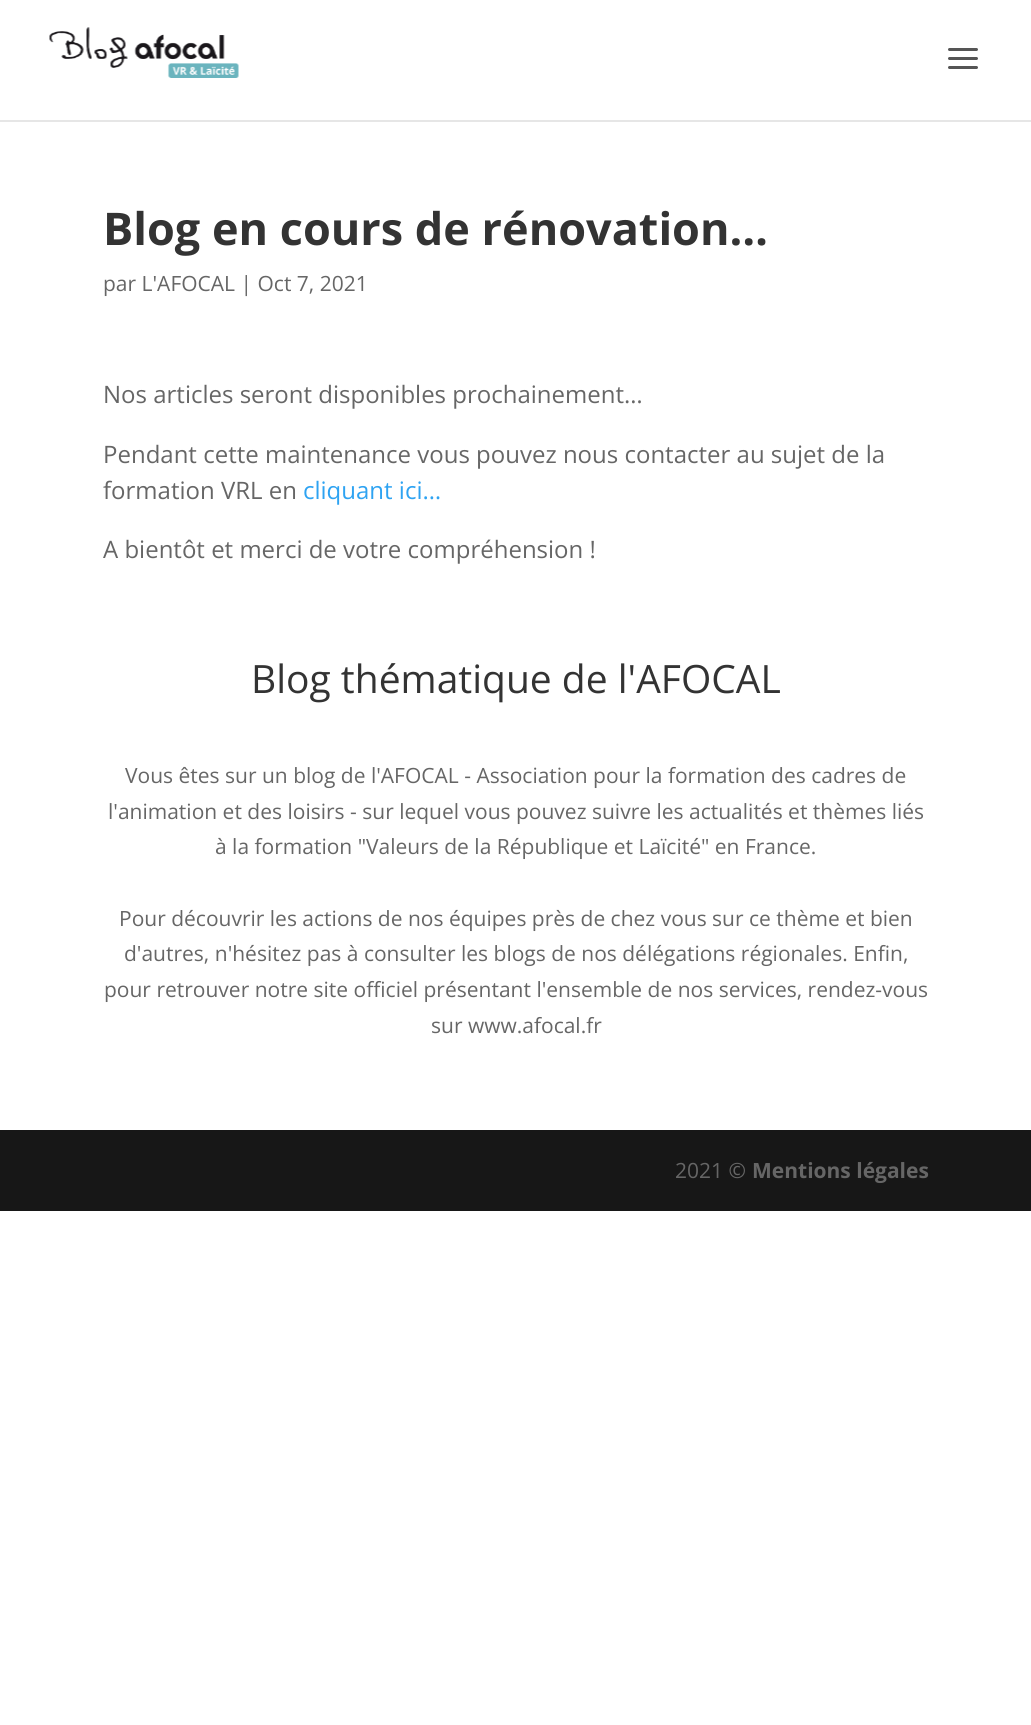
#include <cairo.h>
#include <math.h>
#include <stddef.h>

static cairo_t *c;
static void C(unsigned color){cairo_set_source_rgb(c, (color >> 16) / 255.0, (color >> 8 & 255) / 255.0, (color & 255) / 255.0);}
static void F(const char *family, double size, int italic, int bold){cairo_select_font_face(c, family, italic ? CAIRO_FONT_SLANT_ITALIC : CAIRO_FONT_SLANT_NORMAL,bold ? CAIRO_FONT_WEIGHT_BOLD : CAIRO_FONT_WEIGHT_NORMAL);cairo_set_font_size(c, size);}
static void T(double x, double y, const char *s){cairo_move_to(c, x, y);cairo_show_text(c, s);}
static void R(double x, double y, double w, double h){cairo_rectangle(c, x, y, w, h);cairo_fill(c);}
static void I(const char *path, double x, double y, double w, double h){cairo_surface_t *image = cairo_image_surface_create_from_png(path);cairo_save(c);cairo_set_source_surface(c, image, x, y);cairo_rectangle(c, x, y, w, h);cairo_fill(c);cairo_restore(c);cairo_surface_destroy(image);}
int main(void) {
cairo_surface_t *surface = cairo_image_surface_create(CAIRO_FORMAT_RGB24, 1031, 1725);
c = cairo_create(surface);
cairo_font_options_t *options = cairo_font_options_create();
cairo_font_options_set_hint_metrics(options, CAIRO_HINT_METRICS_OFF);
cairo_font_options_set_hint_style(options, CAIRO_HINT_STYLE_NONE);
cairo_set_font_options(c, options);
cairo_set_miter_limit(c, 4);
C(0xffffff);
cairo_paint(c);
C(0xe6e6e6);
R(0,120,1031,2);
I("1.png",49,27,190,51);
I("2.png",948,48,30,21);
F("Open Sans",45,0,1);
C(0x333333);
T(103,245,"Blog en cours de rénovation…");
F("Open Sans",21,0,0);
C(0x666666);
T(103,291,"par L'AFOCAL | Oct 7, 2021");
F("Open Sans",24,0,0);
T(103,403,"Nos articles seront disponibles prochainement…");
T(103,463,"Pendant cette maintenance vous pouvez nous contacter au sujet de la");
T(103,499,"formation VRL en");
C(0x2ea3f2);
T(303,499,"cliquant ici…");
C(0x666666);
T(103,558,"A bientôt et merci de votre compréhension !");
F("Open Sans",39,0,0);
C(0x333333);
T(251,693,"Blog thématique de l'AFOCAL");
F("Open Sans",21,0,0);
C(0x666666);
T(125,783,"Vous êtes sur un blog de l'AFOCAL - Association pour la formation des cadres de");
T(108,819,"l'animation et des loisirs - sur lequel vous pouvez suivre les actualités et thèmes liés");
T(215,854,"à la formation \"Valeurs de la République et Laïcité\" en France.");
T(119,926,"Pour découvrir les actions de nos équipes près de chez vous sur ce thème et bien");
T(124,961,"d'autres, n'hésitez pas à consulter les blogs de nos délégations régionales. Enfin,");
T(104,997,"pour retrouver notre site officiel présentant l'ensemble de nos services, rendez-vous");
T(431,1033,"sur www.afocal.fr");
C(0x171717);
R(0,1130,1031,81);
C(0x666666);
T(675,1178,"2021 ©");
F("Open Sans",21,0,1);
T(752,1178,"Mentions légales");
cairo_surface_write_to_png(surface, "o.png");
cairo_font_options_destroy(options);
cairo_destroy(c);
cairo_surface_destroy(surface);
return 0;
}
